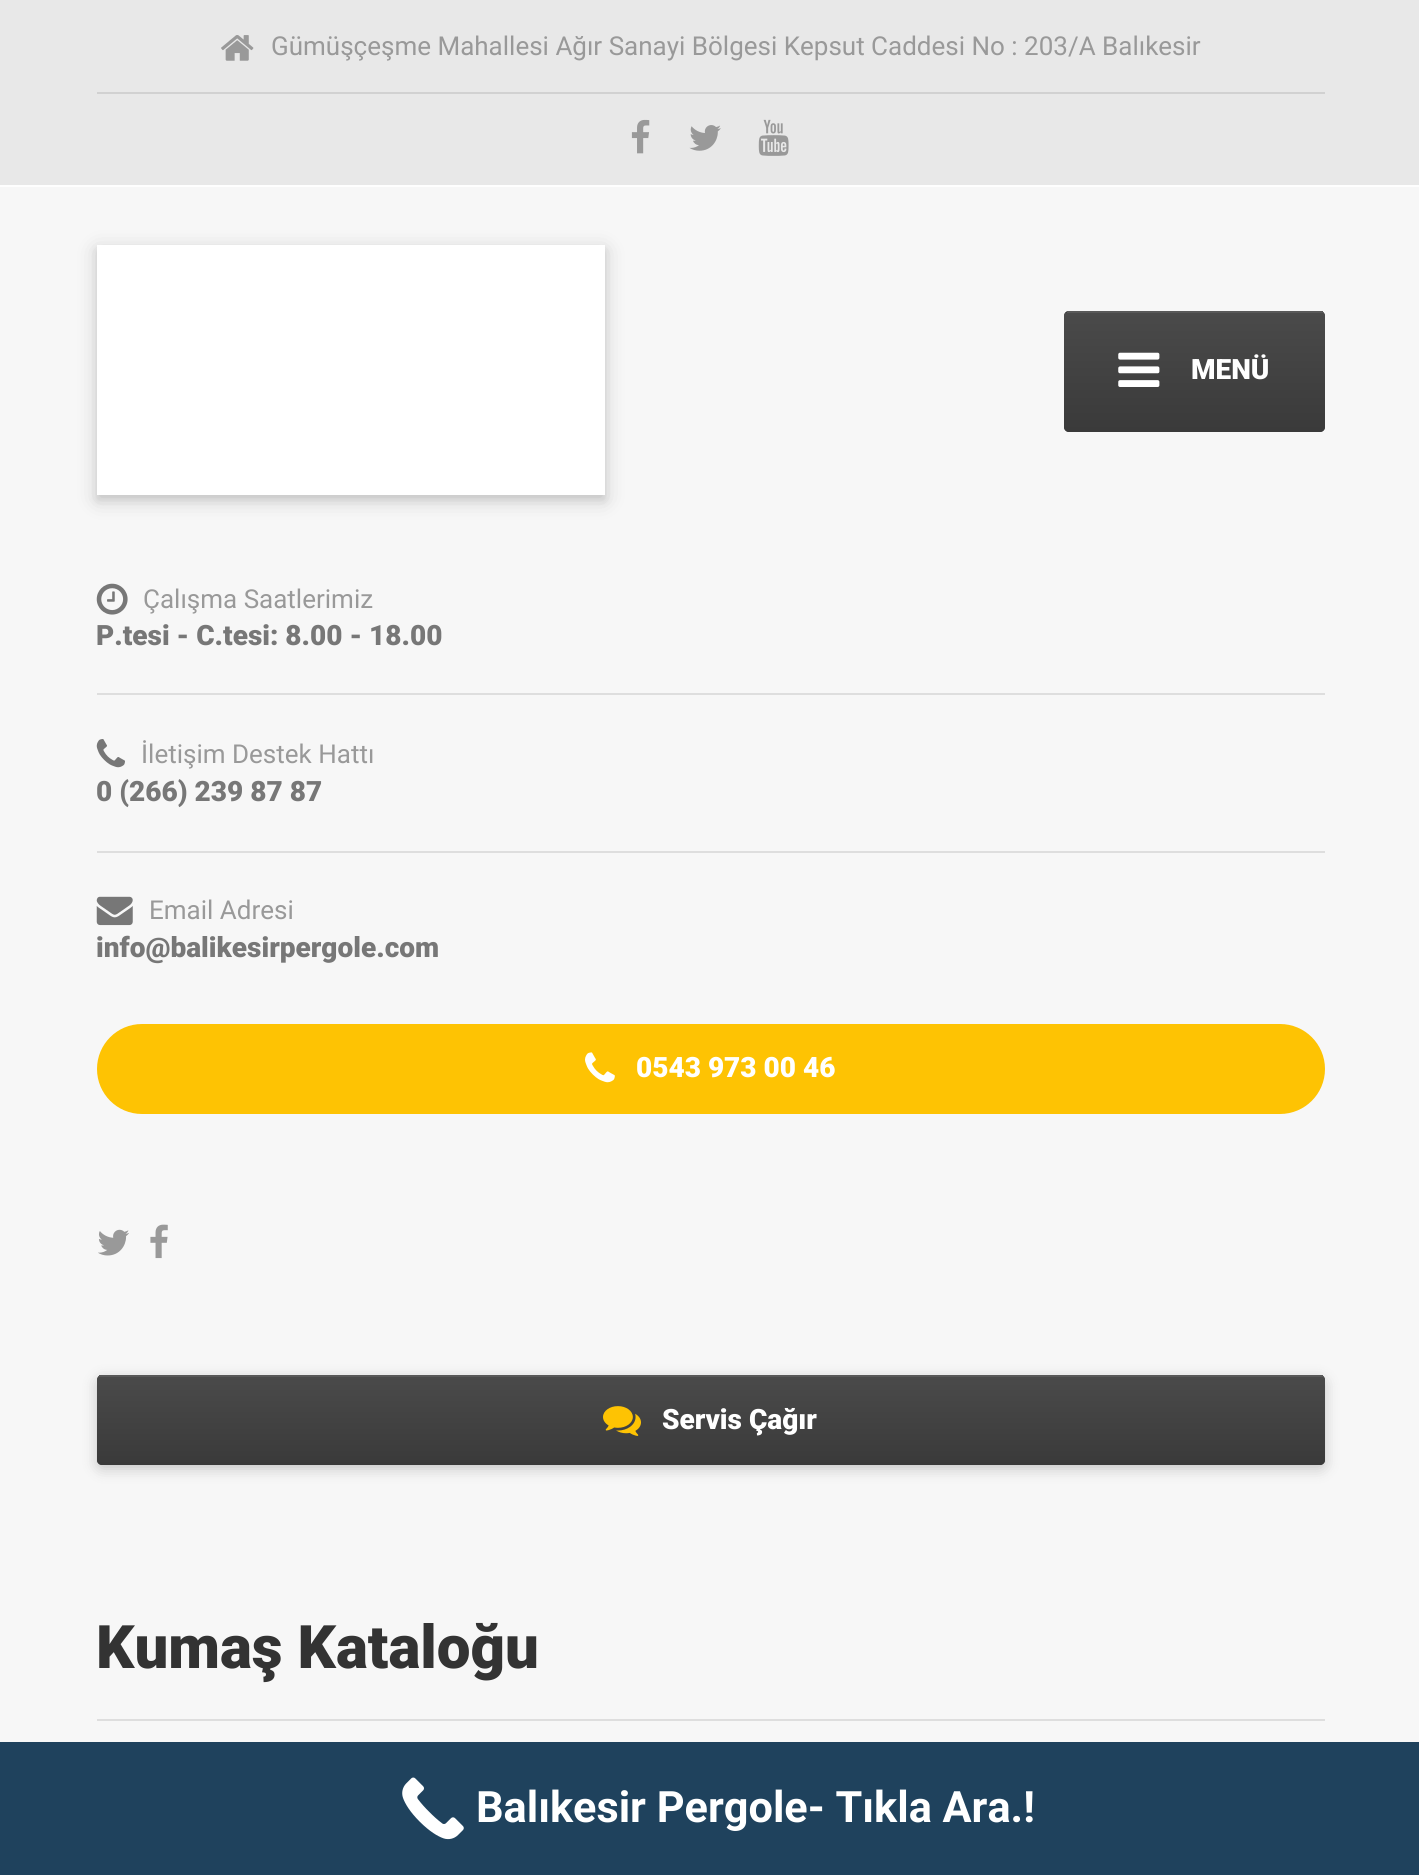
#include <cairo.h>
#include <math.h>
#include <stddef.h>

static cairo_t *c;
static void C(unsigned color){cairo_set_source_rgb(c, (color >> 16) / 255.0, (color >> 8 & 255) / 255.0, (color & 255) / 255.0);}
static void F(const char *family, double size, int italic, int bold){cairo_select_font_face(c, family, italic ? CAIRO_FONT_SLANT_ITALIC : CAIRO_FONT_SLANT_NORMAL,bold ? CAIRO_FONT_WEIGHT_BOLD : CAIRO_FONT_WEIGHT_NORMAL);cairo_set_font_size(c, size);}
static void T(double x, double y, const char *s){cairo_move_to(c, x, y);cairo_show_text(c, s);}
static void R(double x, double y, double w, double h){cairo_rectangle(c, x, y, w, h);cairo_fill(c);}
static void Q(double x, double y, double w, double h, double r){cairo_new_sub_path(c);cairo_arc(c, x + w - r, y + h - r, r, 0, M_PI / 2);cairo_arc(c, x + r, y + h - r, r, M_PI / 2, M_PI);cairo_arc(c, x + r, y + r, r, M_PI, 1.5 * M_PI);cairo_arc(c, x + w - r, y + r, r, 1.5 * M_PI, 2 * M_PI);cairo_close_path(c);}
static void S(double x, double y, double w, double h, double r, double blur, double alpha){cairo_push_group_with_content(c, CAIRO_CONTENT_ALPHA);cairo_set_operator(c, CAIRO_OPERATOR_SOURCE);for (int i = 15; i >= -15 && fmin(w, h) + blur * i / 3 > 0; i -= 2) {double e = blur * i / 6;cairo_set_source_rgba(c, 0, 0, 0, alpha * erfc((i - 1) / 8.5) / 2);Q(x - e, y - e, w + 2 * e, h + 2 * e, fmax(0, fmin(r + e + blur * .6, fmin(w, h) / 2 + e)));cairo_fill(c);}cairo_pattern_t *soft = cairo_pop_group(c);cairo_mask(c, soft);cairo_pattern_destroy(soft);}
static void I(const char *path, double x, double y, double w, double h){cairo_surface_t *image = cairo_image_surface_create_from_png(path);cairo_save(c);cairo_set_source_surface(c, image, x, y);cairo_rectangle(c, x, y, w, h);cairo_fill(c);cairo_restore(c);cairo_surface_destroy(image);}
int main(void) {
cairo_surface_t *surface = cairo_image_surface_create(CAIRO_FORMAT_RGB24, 1419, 1875);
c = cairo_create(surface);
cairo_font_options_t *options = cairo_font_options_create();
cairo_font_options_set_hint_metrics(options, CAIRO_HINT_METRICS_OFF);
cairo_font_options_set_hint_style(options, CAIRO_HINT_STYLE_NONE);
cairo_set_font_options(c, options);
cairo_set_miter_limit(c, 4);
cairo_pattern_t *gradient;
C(0xe8e8e8);
cairo_paint(c);
C(0xfefefe);
R(0,185,1419,2);
C(0xd1d1d1);
R(97,92,1228,2);
I("1.png",221,35,33,26);
F("Roboto",26,0,0);
C(0x999999);
T(271,55,"Gümüşçeşme Mahallesi Ağır Sanayi Bölgesi Kepsut Caddesi No : 203/A Balıkesir");
I("2.png",631,119,19,35);
I("3.png",689,125,32,26);
I("4.png",758,119,31,37);
C(0xf7f7f7);
R(0,187,1419,1555);
C(0x000000);
S(97,250,508,250,0,11,.15);
S(97,250,508,250,0,4.5,.1);
C(0xffffff);
R(97,245,508,250);
C(0x4a4a4a);
Q(1064,311,261,121,5);
cairo_fill(c);
cairo_save(c);
Q(1064,311,261,121,5);
cairo_clip(c);
gradient = cairo_pattern_create_linear(1195,194,1195,313);
cairo_pattern_add_color_stop_rgba(gradient,0,0.29,0.29,0.29,1);
cairo_pattern_add_color_stop_rgba(gradient,1,0.227,0.227,0.227,1);
cairo_set_source(c,gradient);
cairo_pattern_destroy(gradient);
R(1064,311,261,2);
gradient = cairo_pattern_create_linear(1195,313,1195,432);
cairo_pattern_add_color_stop_rgba(gradient,0,0.29,0.29,0.29,1);
cairo_pattern_add_color_stop_rgba(gradient,1,0.227,0.227,0.227,1);
cairo_set_source(c,gradient);
cairo_pattern_destroy(gradient);
cairo_new_path(c);
cairo_move_to(c,1064,313);
cairo_line_to(c,1325,313);
cairo_line_to(c,1325,427);
cairo_curve_to(c,1325,430,1323,432,1320,432);
cairo_line_to(c,1069,432);
cairo_curve_to(c,1066,432,1064,430,1064,427);
cairo_close_path(c);
cairo_fill(c);
cairo_restore(c);
C(0x595959);
R(1067,311,256,2);
I("5.png",1118,352,42,35);
F("Roboto Black",28,0,0);
C(0xffffff);
T(1191,379,"MENÜ");
I("6.png",96,583,32,32);
F("Roboto",26,0,0);
C(0x999999);
T(143,608,"Çalışma Saatlerimiz");
F("Roboto Black",28,0,0);
C(0x777777);
T(96,645,"P.tesi - C.tesi: 8.00 - 18.00");
C(0xdedede);
R(97,693,1228,2);
I("7.png",96,739,29,29);
F("Roboto",26,0,0);
C(0x999999);
T(141,763,"İletişim Destek Hattı");
F("Roboto Black",28,0,0);
C(0x777777);
T(96,801,"0 (266) 239 87 87");
C(0xdedede);
R(97,851,1228,2);
I("8.png",96,896,37,30);
F("Roboto",26,0,0);
C(0x999999);
T(149,919,"Email Adresi");
F("Roboto Black",28,0,0);
C(0x777777);
T(96,957,"info@balikesirpergole.com");
C(0xfec303);
Q(98,1025,1226,88,44);
cairo_fill_preserve(c);
cairo_stroke(c);
I("9.png",585,1052,30,31);
C(0xffffff);
T(636,1077,"0543 973 00 46");
I("10.png",98,1229,31,27);
I("11.png",150,1224,18,35);
C(0x000000);
S(97,1379,1228,90,5,7,.2);
C(0x4a4a4a);
Q(97,1375,1228,90,5);
cairo_fill(c);
cairo_save(c);
Q(97,1375,1228,90,5);
cairo_clip(c);
gradient = cairo_pattern_create_linear(711,1289,711,1377);
cairo_pattern_add_color_stop_rgba(gradient,0,0.29,0.29,0.29,1);
cairo_pattern_add_color_stop_rgba(gradient,1,0.227,0.227,0.227,1);
cairo_set_source(c,gradient);
cairo_pattern_destroy(gradient);
R(97,1376,1228,1);
gradient = cairo_pattern_create_linear(711,1377,711,1465);
cairo_pattern_add_color_stop_rgba(gradient,0,0.29,0.29,0.29,1);
cairo_pattern_add_color_stop_rgba(gradient,1,0.227,0.227,0.227,1);
cairo_set_source(c,gradient);
cairo_pattern_destroy(gradient);
cairo_new_path(c);
cairo_move_to(c,97,1377);
cairo_line_to(c,1325,1377);
cairo_line_to(c,1325,1460);
cairo_curve_to(c,1325,1463,1323,1465,1320,1465);
cairo_line_to(c,102,1465);
cairo_curve_to(c,99,1465,97,1463,97,1460);
cairo_close_path(c);
cairo_fill(c);
cairo_restore(c);
C(0x595959);
R(99,1375,1224,2);
I("12.png",603,1406,38,30);
C(0xffffff);
T(662,1429,"Servis Çağır");
F("Roboto Black",60,0,0);
C(0x333333);
T(96,1668,"Kumaş Kataloğu");
C(0xdedede);
R(97,1719,1228,2);
C(0x1f425d);
R(0,1742,1419,133);
I("13.png",402,1777,62,63);
F("Roboto",43.25,0,1);
C(0xffffff);
T(476,1822,"Balıkesir Pergole- Tıkla Ara.!");
cairo_surface_write_to_png(surface, "o.png");
cairo_font_options_destroy(options);
cairo_destroy(c);
cairo_surface_destroy(surface);
return 0;
}
